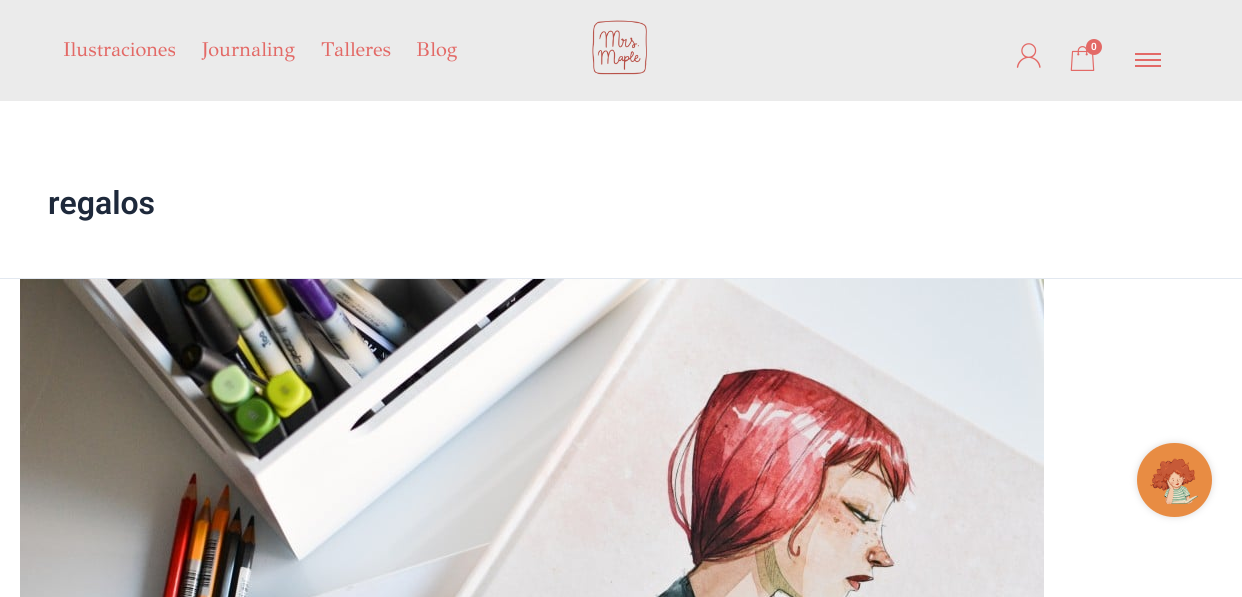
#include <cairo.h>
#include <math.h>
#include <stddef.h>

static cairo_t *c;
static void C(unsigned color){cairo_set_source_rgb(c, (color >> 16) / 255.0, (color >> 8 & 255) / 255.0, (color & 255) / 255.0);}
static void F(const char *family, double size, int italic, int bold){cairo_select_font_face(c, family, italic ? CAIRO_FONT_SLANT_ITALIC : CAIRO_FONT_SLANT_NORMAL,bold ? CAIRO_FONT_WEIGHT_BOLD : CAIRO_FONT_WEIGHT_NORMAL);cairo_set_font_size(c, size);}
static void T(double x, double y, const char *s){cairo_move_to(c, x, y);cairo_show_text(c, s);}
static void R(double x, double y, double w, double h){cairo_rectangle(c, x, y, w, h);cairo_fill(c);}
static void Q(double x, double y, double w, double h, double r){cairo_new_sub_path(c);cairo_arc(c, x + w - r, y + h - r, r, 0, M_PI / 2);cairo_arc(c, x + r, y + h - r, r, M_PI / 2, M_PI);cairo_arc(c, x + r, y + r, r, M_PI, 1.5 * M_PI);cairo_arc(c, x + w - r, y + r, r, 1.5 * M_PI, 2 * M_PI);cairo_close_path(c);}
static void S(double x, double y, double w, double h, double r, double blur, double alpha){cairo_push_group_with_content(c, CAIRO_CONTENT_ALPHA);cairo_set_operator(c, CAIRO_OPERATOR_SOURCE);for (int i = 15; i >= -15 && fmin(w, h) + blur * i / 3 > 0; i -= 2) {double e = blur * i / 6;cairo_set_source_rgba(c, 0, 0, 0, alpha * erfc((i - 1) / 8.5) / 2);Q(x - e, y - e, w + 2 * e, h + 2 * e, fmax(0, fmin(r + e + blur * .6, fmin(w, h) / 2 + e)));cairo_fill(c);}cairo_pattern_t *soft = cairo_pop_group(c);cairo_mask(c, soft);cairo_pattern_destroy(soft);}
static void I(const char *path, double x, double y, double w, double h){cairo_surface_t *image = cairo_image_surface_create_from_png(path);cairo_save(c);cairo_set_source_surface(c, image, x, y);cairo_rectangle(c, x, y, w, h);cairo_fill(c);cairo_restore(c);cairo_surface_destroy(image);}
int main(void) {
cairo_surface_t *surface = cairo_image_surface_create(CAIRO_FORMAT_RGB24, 1242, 597);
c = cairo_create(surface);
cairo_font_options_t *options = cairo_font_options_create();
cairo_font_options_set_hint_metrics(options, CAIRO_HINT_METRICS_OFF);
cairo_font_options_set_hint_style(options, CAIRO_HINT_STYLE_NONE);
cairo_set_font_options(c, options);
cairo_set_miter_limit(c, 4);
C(0xffffff);
cairo_paint(c);
C(0xebebeb);
R(0,0,1242,101);
F("GFS Didot",20,0,0);
C(0xe36966);
T(63,56,"Ilustraciones");
T(202,56,"Journaling");
T(321,56,"Talleres");
T(416,56,"Blog");
I("1.png",592,20,55,55);
I("2.png",1016,43,25,25);
I("3.png",1070,46,25,25);
cairo_arc(c,1094,47,8,0,2 * M_PI);
cairo_fill(c);
F("Roboto SemiBold",10,0,0);
C(0xffffff);
T(1091,50,"0");
C(0xe36966);
R(1135,53,26,2);
R(1135,59,26,2);
R(1135,65,26,2);
C(0xb8b6b6);
S(1137,443,75,74,37,3.5,.5);
C(0xe88c43);
Q(1137,443,75,74,37);
cairo_fill(c);
I("4.png",1150,458,48,47);
C(0xe2e8f0);
R(0,278,1242,1);
F("Roboto SemiBold",32,0,0);
C(0x1e293b);
T(48,214,"regalos");
I("5.png",20,279,1024,318);
cairo_surface_write_to_png(surface, "o.png");
cairo_font_options_destroy(options);
cairo_destroy(c);
cairo_surface_destroy(surface);
return 0;
}
